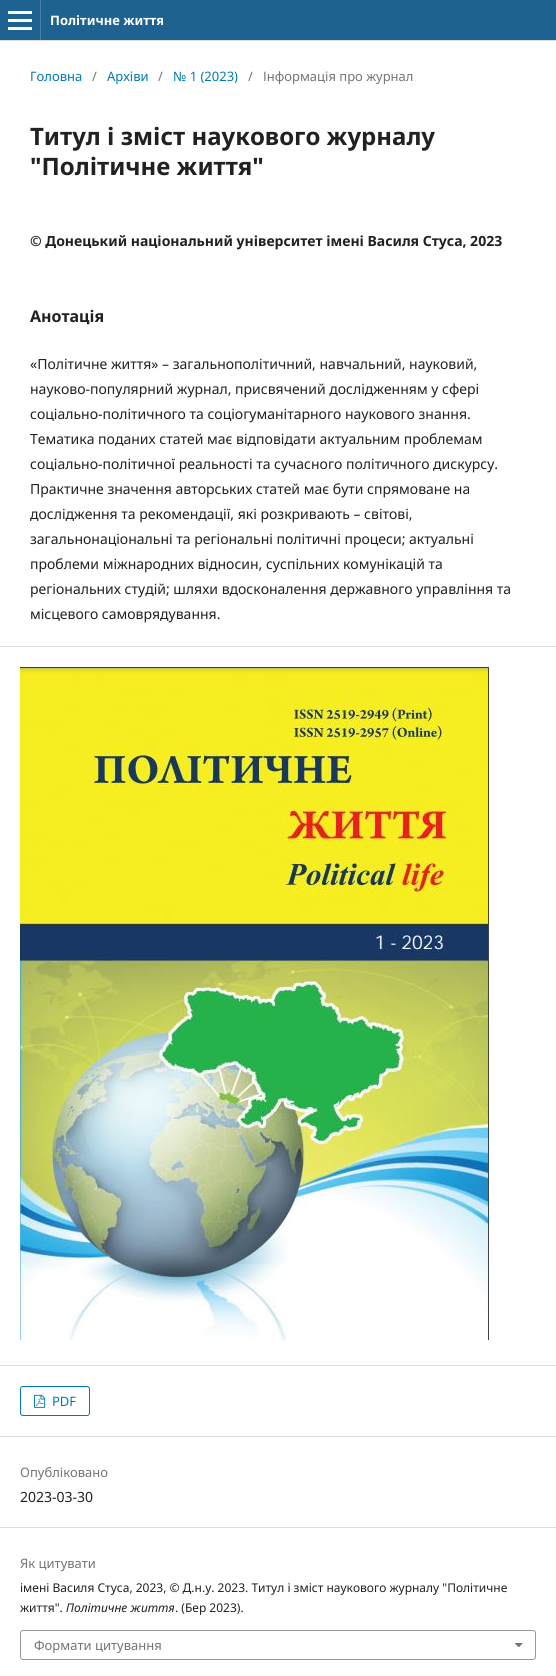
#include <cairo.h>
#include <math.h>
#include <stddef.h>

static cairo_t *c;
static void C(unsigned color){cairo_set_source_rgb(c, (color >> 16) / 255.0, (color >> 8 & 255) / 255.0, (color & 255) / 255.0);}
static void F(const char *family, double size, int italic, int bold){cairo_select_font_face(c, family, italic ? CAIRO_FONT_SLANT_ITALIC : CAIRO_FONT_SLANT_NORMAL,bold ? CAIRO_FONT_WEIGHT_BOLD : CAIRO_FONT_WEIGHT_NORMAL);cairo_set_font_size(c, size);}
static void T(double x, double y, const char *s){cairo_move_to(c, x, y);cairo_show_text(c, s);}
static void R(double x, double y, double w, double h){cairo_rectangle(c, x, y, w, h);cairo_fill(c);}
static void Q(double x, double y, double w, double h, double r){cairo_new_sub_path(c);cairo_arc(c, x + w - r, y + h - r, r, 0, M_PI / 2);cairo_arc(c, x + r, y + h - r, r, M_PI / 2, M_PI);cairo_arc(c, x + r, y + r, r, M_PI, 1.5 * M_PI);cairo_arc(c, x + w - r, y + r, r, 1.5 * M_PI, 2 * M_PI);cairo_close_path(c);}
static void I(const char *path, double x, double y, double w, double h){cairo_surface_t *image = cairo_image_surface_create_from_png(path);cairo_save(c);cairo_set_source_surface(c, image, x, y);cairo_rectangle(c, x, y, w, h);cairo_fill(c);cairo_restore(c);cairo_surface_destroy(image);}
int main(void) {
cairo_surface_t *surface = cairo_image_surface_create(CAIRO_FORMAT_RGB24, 556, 1676);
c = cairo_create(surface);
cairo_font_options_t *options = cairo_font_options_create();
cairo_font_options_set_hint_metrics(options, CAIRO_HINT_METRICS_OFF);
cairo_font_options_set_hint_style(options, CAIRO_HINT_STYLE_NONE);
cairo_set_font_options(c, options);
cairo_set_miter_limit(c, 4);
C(0xffffff);
cairo_paint(c);
C(0x1e6292);
R(0,0,556,40);
C(0xdddddd);
R(0,40,556,1);
C(0x4b81a8);
R(40,0,1,40);
C(0xffffff);
R(8,27,24,3);
R(8,11,24,3);
R(8,19,24,3);
F("Noto Sans",13,0,1);
T(50,25,"Політичне життя");
F("Noto Sans",13,0,0);
C(0x007ab2);
T(30,81,"Головна");
C(0x757575);
T(92,81,"/");
C(0x007ab2);
T(107,81,"Архіви");
C(0x757575);
T(158,81,"/");
C(0x007ab2);
T(173,81,"№ 1 (2023)");
C(0x757575);
T(248,81,"/");
T(263,81,"Інформація про журнал");
F("Noto Sans",24,0,1);
C(0x212121);
T(30,145,"Титул і зміст наукового журналу");
T(30,175,"\"Політичне життя\"");
F("Noto Sans",14,0,1);
T(30,246,"© Донецький національний університет імені Василя Стуса, 2023");
F("Noto Sans",16,0,1);
T(30,322,"Анотація");
F("Noto Sans",14,0,0);
T(30,369,"«Політичне життя» – загальнополітичний, навчальний, науковий,");
T(30,394,"науково-популярний журнал, присвячений дослідженням у сфері");
T(30,419,"соціально-політичного та соціогуманітарного наукового знання.");
T(30,444,"Тематика поданих статей має відповідати актуальним проблемам");
T(30,469,"соціально-політичної реальності та сучасного політичного дискурсу.");
T(30,494,"Практичне значення авторських статей має бути спрямоване на");
T(30,519,"дослідження та рекомендації, які розкривають – світові,");
T(30,544,"загальнонаціональні та регіональні політичні процеси; актуальні");
T(30,569,"проблеми міжнародних відносин, суспільних комунікацій та");
T(30,594,"регіональних студій; шляхи вдосконалення державного управління та");
T(30,619,"місцевого самоврядування.");
C(0xdddddd);
R(0,646,556,1);
R(0,1365,556,1);
I("1.png",20,667,469,673);
R(0,1436,556,1);
Q(20.5,1386.5,69,29,2.5);
C(0x007ab2);
cairo_set_line_width(c,1);
cairo_stroke(c);
I("2.png",34,1394,12,14);
F("Noto Sans",13,0,0);
T(52,1406,"PDF");
C(0xdddddd);
R(0,1527,556,1);
C(0x757575);
T(20,1477,"Опубліковано");
F("Noto Sans",14,0,0);
C(0x212121);
T(20,1502,"2023-03-30");
F("Noto Sans",13,0,0);
C(0x757575);
T(20,1568,"Як цитувати");
F("Noto Sans",12,0,0);
C(0x212121);
T(20,1592,"імені Василя Стуса, 2023, © Д.н.у. 2023. Титул і зміст наукового журналу \"Політичне");
T(20,1612,"життя\".");
F("Noto Sans",12,1,0);
T(66,1612,"Політичне життя");
F("Noto Sans",12,0,0);
T(175,1612,". (Бер 2023).");
Q(20.5,1630.5,515,29,2.5);
C(0x999999);
cairo_stroke(c);
F("Noto Sans",13,0,0);
C(0x757575);
T(34,1650,"Формати цитування");
I("3.png",515,1643,8,5);
cairo_surface_write_to_png(surface, "o.png");
cairo_font_options_destroy(options);
cairo_destroy(c);
cairo_surface_destroy(surface);
return 0;
}
